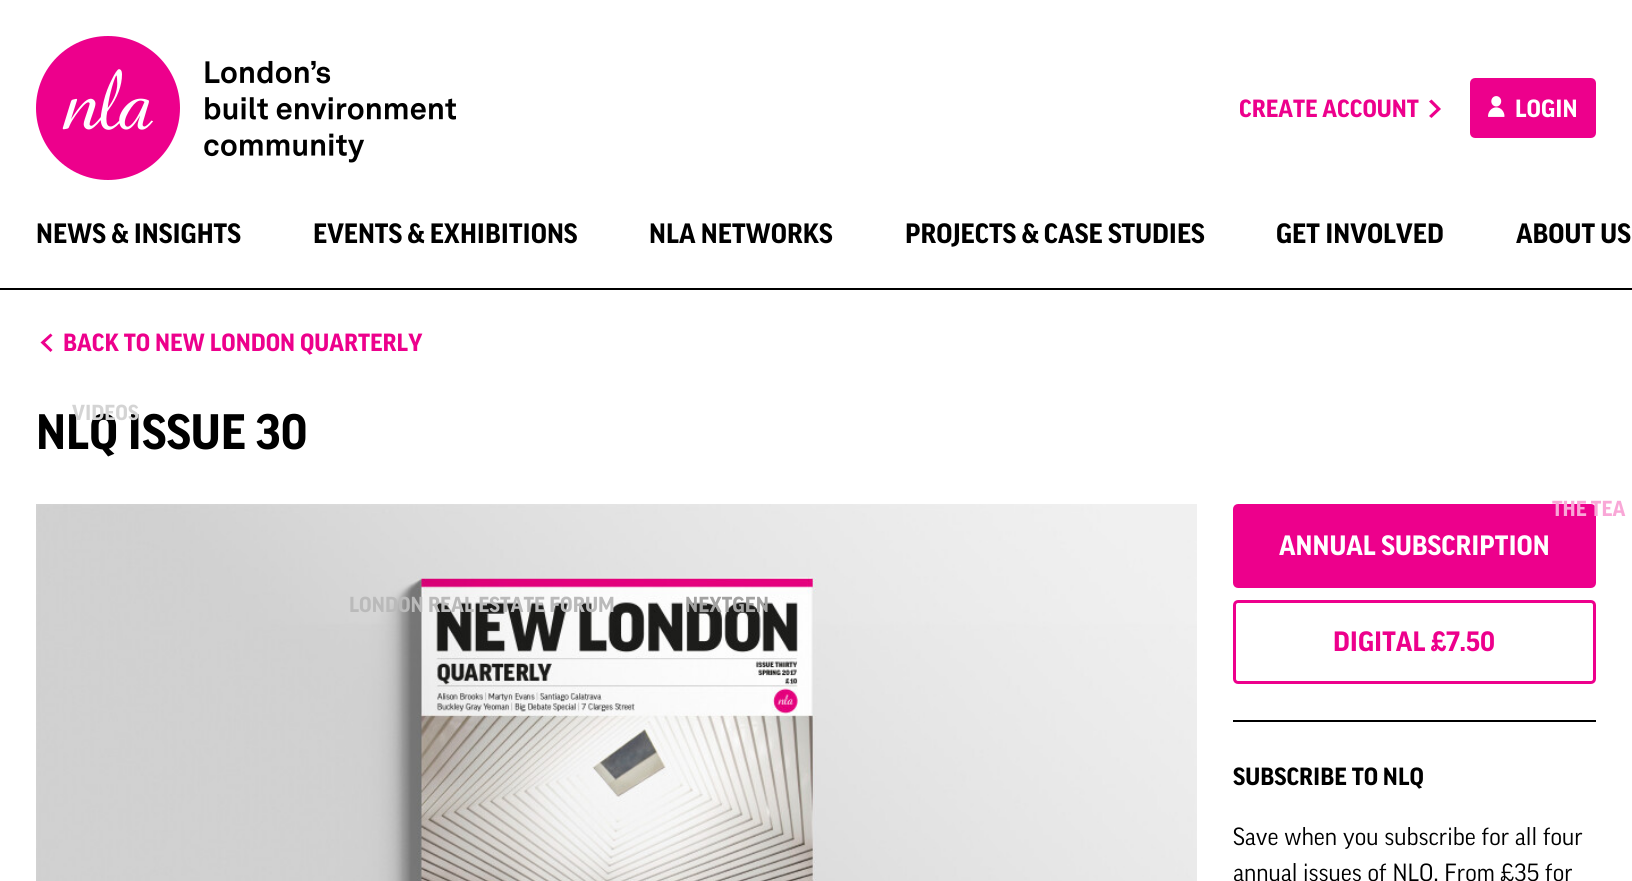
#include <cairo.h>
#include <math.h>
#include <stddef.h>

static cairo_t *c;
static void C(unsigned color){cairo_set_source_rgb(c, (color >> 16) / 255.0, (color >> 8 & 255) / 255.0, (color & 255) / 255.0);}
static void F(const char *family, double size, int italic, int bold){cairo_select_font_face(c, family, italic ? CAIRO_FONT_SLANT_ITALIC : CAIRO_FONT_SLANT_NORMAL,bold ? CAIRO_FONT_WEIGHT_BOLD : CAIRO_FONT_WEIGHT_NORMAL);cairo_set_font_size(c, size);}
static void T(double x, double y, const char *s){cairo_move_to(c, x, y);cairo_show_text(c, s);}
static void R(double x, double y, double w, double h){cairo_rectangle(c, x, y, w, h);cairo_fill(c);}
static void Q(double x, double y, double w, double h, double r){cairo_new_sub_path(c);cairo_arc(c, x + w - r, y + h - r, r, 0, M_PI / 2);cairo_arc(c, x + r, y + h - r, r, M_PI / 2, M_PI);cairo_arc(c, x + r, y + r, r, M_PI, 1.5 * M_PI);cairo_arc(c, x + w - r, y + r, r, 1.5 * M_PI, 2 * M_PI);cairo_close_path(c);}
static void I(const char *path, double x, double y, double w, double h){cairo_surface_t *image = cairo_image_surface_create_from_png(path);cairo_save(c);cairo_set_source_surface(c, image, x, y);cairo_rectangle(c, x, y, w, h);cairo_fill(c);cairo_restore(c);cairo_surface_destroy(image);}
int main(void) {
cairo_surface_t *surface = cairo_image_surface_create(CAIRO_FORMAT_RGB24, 1632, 881);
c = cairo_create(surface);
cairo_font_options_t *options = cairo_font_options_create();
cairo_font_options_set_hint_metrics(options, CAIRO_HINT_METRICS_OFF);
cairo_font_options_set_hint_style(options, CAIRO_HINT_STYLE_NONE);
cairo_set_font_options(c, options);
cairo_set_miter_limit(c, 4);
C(0xffffff);
cairo_paint(c);
I("1.png",36,36,144,144);
I("2.png",204,60,252,103);
F("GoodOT",24,0,1);
C(0xed008c);
T(1239,117,"CREATE ACCOUNT");
cairo_new_path(c);
cairo_move_to(c,1431.5,99.5);
cairo_line_to(c,1429,101.5);
cairo_line_to(c,1436.5,109);
cairo_line_to(c,1429,116);
cairo_line_to(c,1431.5,118);
cairo_line_to(c,1441,109);
cairo_close_path(c);
cairo_fill(c);
Q(1471.5,79.5,123,57,3.5);
cairo_fill_preserve(c);
cairo_set_line_width(c,3);
cairo_stroke(c);
I("3.png",1488,96,17,21);
C(0xffffff);
T(1515,117,"LOGIN");
F("GoodOT",27,0,1);
C(0x000000);
T(36,243,"NEWS & INSIGHTS");
F("GoodOT",48,0,1);
T(36,449,"NLQ ISSUE 30");
F("GoodOT",21,0,1);
C(0xd4d4d4);
T(72,420,"VIDEOS");
F("GoodOT",27,0,1);
C(0x000000);
T(313,243,"EVENTS & EXHIBITIONS");
I("4.png",36,504,1161,377);
F("GoodOT",21,0,1);
C(0xbababa);
T(349,612,"LONDON REAL ESTATE FORUM");
F("GoodOT",27,0,1);
C(0x000000);
T(649,243,"NLA NETWORKS");
F("GoodOT",21,0,1);
C(0xa2a2a1);
T(685,612,"NEXTGEN");
F("GoodOT",27,0,1);
C(0x000000);
T(905,243,"PROJECTS & CASE STUDIES");
T(1276,243,"GET INVOLVED");
T(1516,243,"ABOUT US");
C(0xed008c);
Q(1234.5,505.5,360,81,3.5);
cairo_fill_preserve(c);
cairo_stroke(c);
F("GoodOT",21,0,1);
C(0xf9a7d7);
T(1552,516,"THE TEA");
C(0x000000);
R(0,288,1632,2);
C(0xed008c);
cairo_new_path(c);
cairo_move_to(c,50.5,352);
cairo_line_to(c,52.5,350);
cairo_line_to(c,45,342.5);
cairo_line_to(c,52.5,335.5);
cairo_line_to(c,50.5,333.5);
cairo_line_to(c,40.5,342.5);
cairo_close_path(c);
cairo_fill(c);
F("GoodOT",24,0,1);
T(63,351,"BACK TO NEW LONDON QUARTERLY");
F("GoodOT",27,0,1);
C(0xffffff);
T(1279,555,"ANNUAL SUBSCRIPTION");
Q(1234.5,601.5,360,81,3.5);
C(0xed008c);
cairo_stroke(c);
T(1333,651,"DIGITAL £7.50");
C(0x000000);
R(1233,720,363,2);
F("GoodOT",24,0,1);
T(1233,785,"SUBSCRIBE TO NLQ");
F("GoodOT",24,0,0);
T(1233,845,"Save when you subscribe for all four");
T(1233,881,"annual issues of NLQ. From £35 for");
cairo_surface_write_to_png(surface, "o.png");
cairo_font_options_destroy(options);
cairo_destroy(c);
cairo_surface_destroy(surface);
return 0;
}
